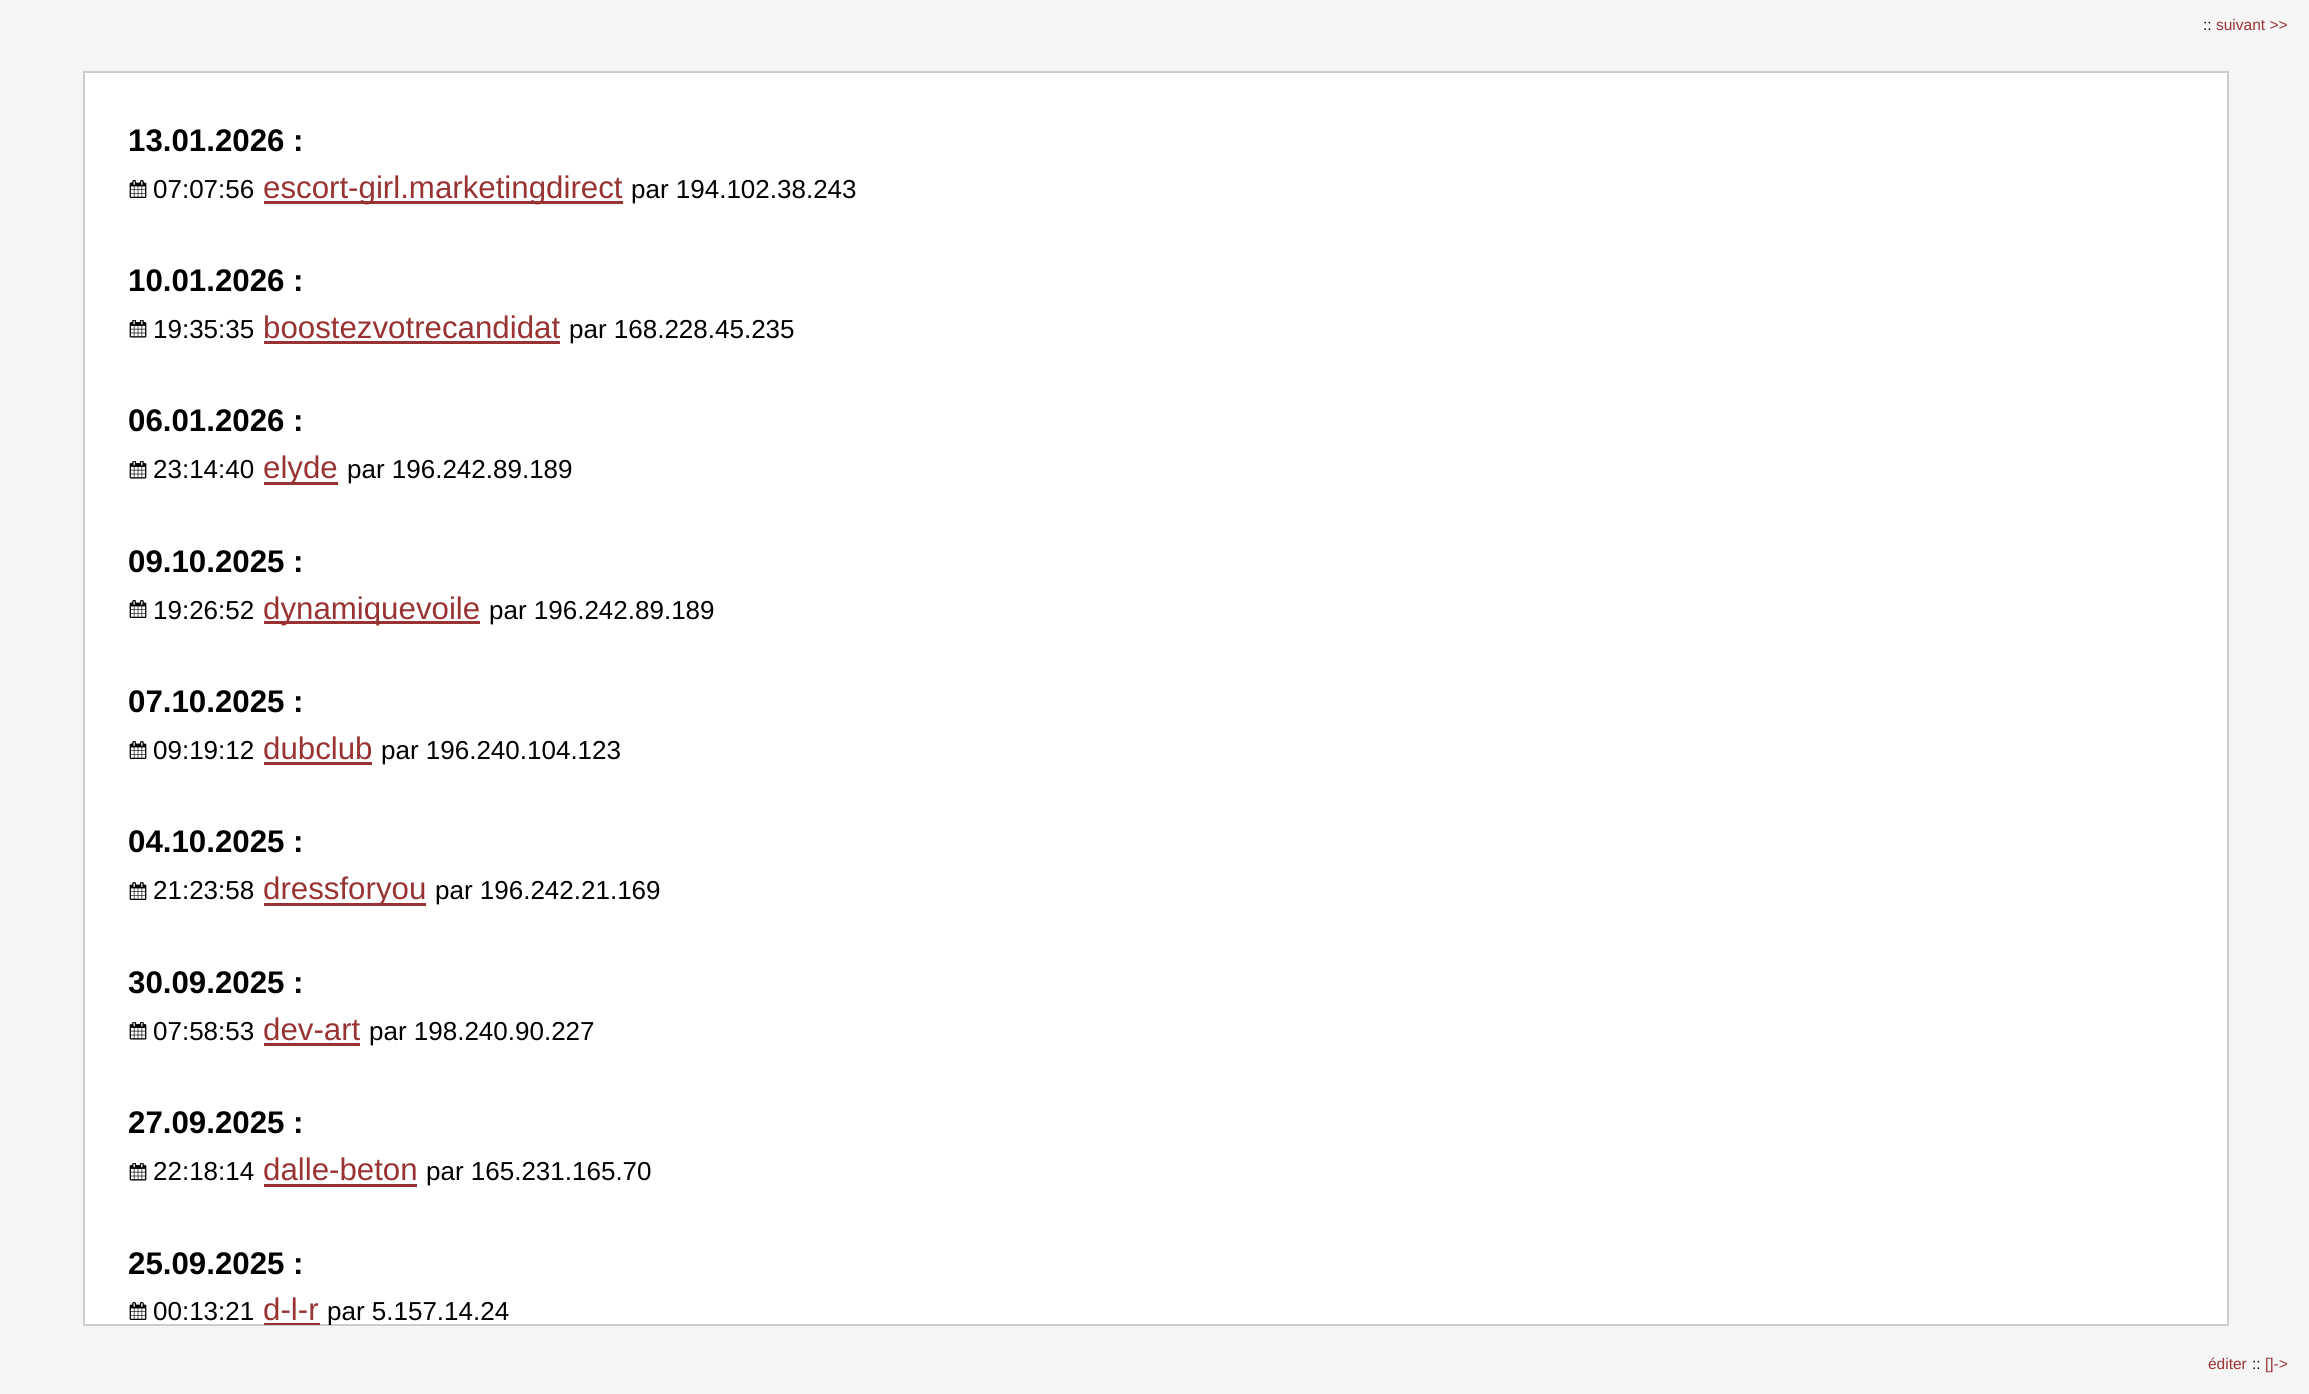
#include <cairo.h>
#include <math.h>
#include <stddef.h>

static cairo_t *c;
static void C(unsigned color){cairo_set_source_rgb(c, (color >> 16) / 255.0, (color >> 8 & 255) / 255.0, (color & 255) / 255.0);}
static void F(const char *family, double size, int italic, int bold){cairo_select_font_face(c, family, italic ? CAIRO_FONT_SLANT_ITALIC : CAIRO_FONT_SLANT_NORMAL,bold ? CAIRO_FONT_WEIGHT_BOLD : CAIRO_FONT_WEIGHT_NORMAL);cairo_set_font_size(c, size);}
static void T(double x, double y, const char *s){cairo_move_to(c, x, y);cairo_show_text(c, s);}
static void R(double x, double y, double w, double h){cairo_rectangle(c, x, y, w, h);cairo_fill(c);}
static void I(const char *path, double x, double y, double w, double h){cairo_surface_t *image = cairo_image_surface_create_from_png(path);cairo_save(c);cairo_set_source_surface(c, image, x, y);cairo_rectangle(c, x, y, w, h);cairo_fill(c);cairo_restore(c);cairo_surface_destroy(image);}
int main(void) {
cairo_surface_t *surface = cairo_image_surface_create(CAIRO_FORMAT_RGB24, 2309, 1394);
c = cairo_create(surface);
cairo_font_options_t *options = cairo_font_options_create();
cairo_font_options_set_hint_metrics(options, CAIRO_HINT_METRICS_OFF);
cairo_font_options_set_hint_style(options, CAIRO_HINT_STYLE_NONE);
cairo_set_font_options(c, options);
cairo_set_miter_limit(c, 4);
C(0xf5f5f5);
cairo_paint(c);
F("Liberation Sans",15.5,0,0);
C(0x000000);
T(2203,30,"::");
C(0x993333);
T(2216,30,"suivant >>");
C(0xffffff);
cairo_rectangle(c,84,72,2144,1253);
cairo_fill_preserve(c);
C(0xcccccc);
cairo_stroke(c);
F("Liberation Sans",31.25,0,1);
C(0x000000);
T(128,151,"13.01.2026 :");
I("1.png",129,180,18,18);
F("Liberation Sans",26,0,0);
T(153,198,"07:07:56");
C(0x993333);
R(264,201,359,3);
F("Liberation Sans",31.25,0,0);
T(263,198,"escort-girl.marketingdirect");
F("Liberation Sans",26,0,0);
C(0x000000);
T(631,198,"par 194.102.38.243");
F("Liberation Sans",31.25,0,1);
T(128,291,"10.01.2026 :");
I("2.png",129,320,18,18);
F("Liberation Sans",26,0,0);
T(153,338,"19:35:35");
F("Liberation Sans",31.25,0,0);
C(0x993333);
T(263,338,"boostezvotrecandidat");
R(264,341,296,3);
F("Liberation Sans",26,0,0);
C(0x000000);
T(569,338,"par 168.228.45.235");
F("Liberation Sans",31.25,0,1);
T(128,431,"06.01.2026 :");
I("2.png",129,461,18,18);
F("Liberation Sans",26,0,0);
T(153,478,"23:14:40");
C(0x993333);
R(264,482,74,3);
F("Liberation Sans",31.25,0,0);
T(263,478,"elyde");
F("Liberation Sans",26,0,0);
C(0x000000);
T(347,478,"par 196.242.89.189");
F("Liberation Sans",31.25,0,1);
T(128,572,"09.10.2025 :");
I("1.png",129,600,18,18);
F("Liberation Sans",26,0,0);
T(153,619,"19:26:52");
C(0x993333);
R(264,621,216,3);
F("Liberation Sans",31.25,0,0);
T(263,619,"dynamiquevoile");
F("Liberation Sans",26,0,0);
C(0x000000);
T(489,619,"par 196.242.89.189");
F("Liberation Sans",31.25,0,1);
T(128,712,"07.10.2025 :");
I("1.png",129,741,18,18);
F("Liberation Sans",26,0,0);
T(153,759,"09:19:12");
F("Liberation Sans",31.25,0,0);
C(0x993333);
T(263,759,"dubclub");
R(264,762,108,3);
F("Liberation Sans",26,0,0);
C(0x000000);
T(381,759,"par 196.240.104.123");
F("Liberation Sans",31.25,0,1);
T(128,852,"04.10.2025 :");
I("1.png",129,882,18,18);
F("Liberation Sans",26,0,0);
T(153,899,"21:23:58");
C(0x993333);
R(264,903,162,3);
F("Liberation Sans",31.25,0,0);
T(263,899,"dressforyou");
F("Liberation Sans",26,0,0);
C(0x000000);
T(435,899,"par 196.242.21.169");
F("Liberation Sans",31.25,0,1);
T(128,993,"30.09.2025 :");
I("2.png",129,1022,18,18);
F("Liberation Sans",26,0,0);
T(153,1040,"07:58:53");
F("Liberation Sans",31.25,0,0);
C(0x993333);
T(263,1040,"dev-art");
R(264,1043,96,3);
F("Liberation Sans",26,0,0);
C(0x000000);
T(369,1040,"par 198.240.90.227");
F("Liberation Sans",31.25,0,1);
T(128,1133,"27.09.2025 :");
I("2.png",129,1163,18,18);
F("Liberation Sans",26,0,0);
T(153,1180,"22:18:14");
F("Liberation Sans",31.25,0,0);
C(0x993333);
T(263,1180,"dalle-beton");
R(264,1184,153,3);
F("Liberation Sans",26,0,0);
C(0x000000);
T(426,1180,"par 165.231.165.70");
F("Liberation Sans",31.25,0,1);
T(128,1274,"25.09.2025 :");
I("1.png",129,1302,18,18);
F("Liberation Sans",26,0,0);
T(153,1320,"00:13:21");
F("Liberation Sans",31.25,0,0);
C(0x993333);
T(263,1320,"d-l-r");
R(264,1323,56,2);
cairo_save(c);
cairo_rectangle(c,84,72,2144,1253);
cairo_clip(c);
F("Liberation Sans",26,0,0);
C(0x000000);
T(327,1320,"par 5.157.14.24");
cairo_restore(c);
F("Liberation Sans",15.5,0,0);
T(2208,1369,"éditer");
C(0x000000);
T(2252,1369,"::");
C(0x993333);
T(2265,1369,"[]->");
cairo_surface_write_to_png(surface, "o.png");
cairo_font_options_destroy(options);
cairo_destroy(c);
cairo_surface_destroy(surface);
return 0;
}
